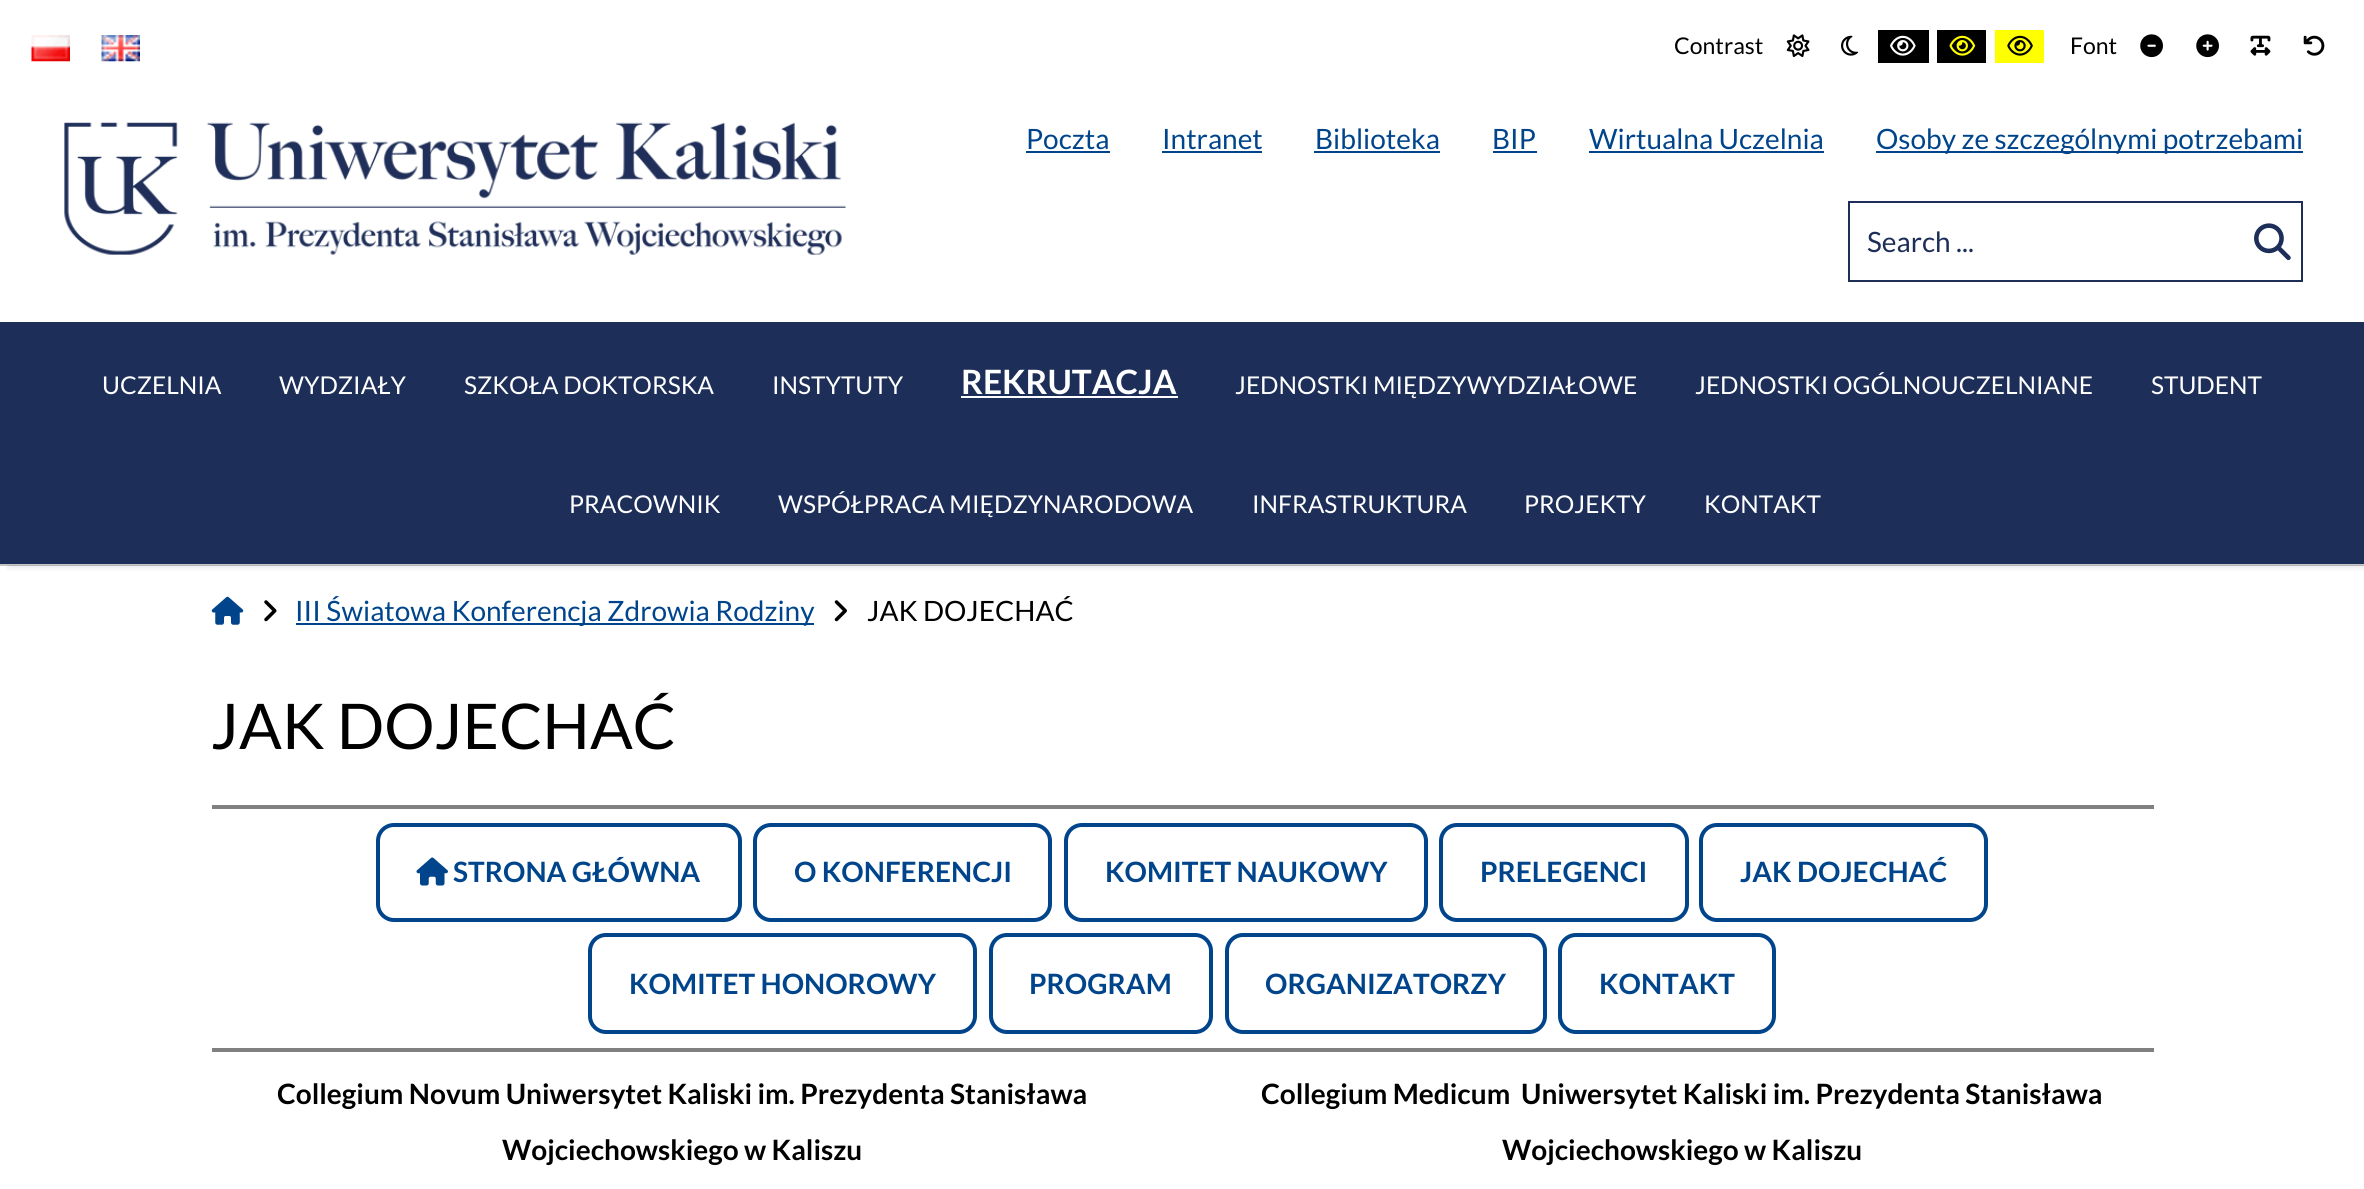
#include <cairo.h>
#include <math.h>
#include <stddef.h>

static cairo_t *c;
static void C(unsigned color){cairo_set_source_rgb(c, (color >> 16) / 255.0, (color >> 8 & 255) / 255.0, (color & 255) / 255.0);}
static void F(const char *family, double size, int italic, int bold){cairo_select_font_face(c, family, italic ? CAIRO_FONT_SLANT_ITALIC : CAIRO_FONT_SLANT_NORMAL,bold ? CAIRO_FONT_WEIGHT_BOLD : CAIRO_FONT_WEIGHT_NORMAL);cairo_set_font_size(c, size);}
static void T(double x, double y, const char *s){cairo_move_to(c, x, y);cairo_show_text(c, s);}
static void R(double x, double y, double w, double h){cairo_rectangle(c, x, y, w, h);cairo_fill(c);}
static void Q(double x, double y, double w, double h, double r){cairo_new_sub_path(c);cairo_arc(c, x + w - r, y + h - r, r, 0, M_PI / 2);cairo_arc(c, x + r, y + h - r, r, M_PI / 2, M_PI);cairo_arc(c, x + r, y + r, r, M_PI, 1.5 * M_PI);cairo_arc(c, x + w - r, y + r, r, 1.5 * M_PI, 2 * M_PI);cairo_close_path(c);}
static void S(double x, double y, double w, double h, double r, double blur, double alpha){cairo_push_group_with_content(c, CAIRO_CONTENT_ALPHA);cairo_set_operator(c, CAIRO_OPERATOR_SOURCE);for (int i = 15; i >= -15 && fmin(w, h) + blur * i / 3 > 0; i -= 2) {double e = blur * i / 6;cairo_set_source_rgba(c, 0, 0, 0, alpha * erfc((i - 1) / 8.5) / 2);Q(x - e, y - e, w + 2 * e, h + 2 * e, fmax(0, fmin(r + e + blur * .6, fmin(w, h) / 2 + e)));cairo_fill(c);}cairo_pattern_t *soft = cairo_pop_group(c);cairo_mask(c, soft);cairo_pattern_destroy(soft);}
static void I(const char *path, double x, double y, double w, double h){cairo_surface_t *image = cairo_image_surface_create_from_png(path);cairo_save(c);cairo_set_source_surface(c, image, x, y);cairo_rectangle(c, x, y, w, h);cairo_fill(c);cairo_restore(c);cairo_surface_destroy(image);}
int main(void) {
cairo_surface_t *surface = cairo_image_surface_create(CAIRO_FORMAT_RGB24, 2364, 1189);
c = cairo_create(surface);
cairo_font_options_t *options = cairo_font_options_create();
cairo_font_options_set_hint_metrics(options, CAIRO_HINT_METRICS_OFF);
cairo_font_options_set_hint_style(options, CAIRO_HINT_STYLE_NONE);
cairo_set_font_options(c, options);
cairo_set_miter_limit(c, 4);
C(0xffffff);
cairo_paint(c);
cairo_save(c);
cairo_rectangle(c,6,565,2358,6);
cairo_clip(c);
C(0x161616);
S(9,0,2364,565,0,4.5,.2);
cairo_restore(c);
cairo_set_source_rgba(c,0.086,0.086,0.086,0.25);
R(0,564,2364,2);
I("1.png",31,35,39,27);
I("2.png",101,35,39,27);
F("Lato",23,0,0);
C(0x000000);
T(1674,54,"Contrast");
I("3.png",1786,34,24,24);
I("4.png",1841,35,17,21);
R(1878,30,51,33);
I("5.png",1890,35,26,21);
R(1937,30,49,33);
I("6.png",1949,35,27,21);
C(0xffff00);
R(1995,30,49,33);
I("7.png",2007,35,26,21);
C(0x000000);
T(2070,54,"Font");
I("8.png",2140,34,23,24);
I("9.png",2196,34,23,24);
I("10.png",2250,35,21,21);
I("11.png",2303,35,22,21);
I("12.png",64,122,782,133);
F("Lato",28,0,0);
C(0x00458c);
T(1026,149,"Poczta");
R(1026,151,84,2);
T(1162,149,"Intranet");
R(1162,151,100,2);
T(1315,149,"Biblioteka");
R(1314,151,126,2);
T(1492,149,"BIP");
R(1493,151,44,2);
T(1589,149,"Wirtualna Uczelnia");
R(1589,151,235,2);
R(1876,151,427,2);
T(1876,149,"Osoby ze szczególnymi potrzebami");
cairo_rectangle(c,1849,202,453,79);
C(0x1d2e59);
cairo_stroke(c);
T(1867,252,"Search ...");
I("13.png",2254,223,37,38);
R(0,322,2364,242);
F("Lato",24.5,0,0);
C(0xffffff);
T(102,394,"UCZELNIA");
T(279,394,"WYDZIAŁY");
T(464,394,"SZKOŁA DOKTORSKA");
T(772,394,"INSTYTUTY");
F("Lato",33.5,0,1);
T(961,394,"REKRUTACJA");
R(961,396,217,2);
F("Lato",24.5,0,0);
T(1235,394,"JEDNOSTKI MIĘDZYWYDZIAŁOWE");
T(1695,394,"JEDNOSTKI OGÓLNOUCZELNIANE");
T(2151,394,"STUDENT");
T(569,513,"PRACOWNIK");
T(778,513,"WSPÓŁPRACA MIĘDZYNARODOWA");
T(1252,513,"INFRASTRUKTURA");
T(1524,513,"PROJEKTY");
T(1704,513,"KONTAKT");
I("14.png",211,596,33,29);
I("15.png",264,600,13,22);
C(0x00458c);
R(296,623,518,2);
F("Lato",28,0,0);
T(295,621,"III Światowa Konferencja Zdrowia Rodziny");
I("16.png",834,600,13,22);
C(0x000000);
T(867,621,"JAK DOJECHAĆ");
F("Lato",63,0,0);
T(211,749,"JAK DOJECHAĆ");
C(0x808080);
R(212,805,1942,4);
Q(378,825,362,95,16);
C(0x00458c);
cairo_set_line_width(c,4);
cairo_stroke(c);
I("17.png",416,857,32,29);
F("Lato",28,0,1);
T(453,882,"STRONA GŁÓWNA");
Q(755,825,295,95,16);
cairo_stroke(c);
T(794,882,"O KONFERENCJI");
Q(1066,825,360,95,16);
cairo_stroke(c);
T(1105,882,"KOMITET NAUKOWY");
Q(1441,825,246,95,16);
cairo_stroke(c);
T(1480,882,"PRELEGENCI");
Q(1701,825,285,95,16);
cairo_stroke(c);
T(1740,882,"JAK DOJECHAĆ");
Q(590,935,385,97,16);
cairo_stroke(c);
T(629,994,"KOMITET HONOROWY");
Q(991,935,220,97,16);
cairo_stroke(c);
T(1029,994,"PROGRAM");
Q(1227,935,318,97,16);
cairo_stroke(c);
T(1265,994,"ORGANIZATORZY");
Q(1560,935,214,97,16);
cairo_stroke(c);
T(1599,994,"KONTAKT");
C(0x808080);
R(212,1048,1942,4);
C(0x000000);
T(277,1104,"Collegium Novum Uniwersytet Kaliski im. Prezydenta Stanisława");
T(502,1160,"Wojciechowskiego w Kaliszu");
T(1261,1104,"Collegium Medicum");
T(1521,1104,"Uniwersytet Kaliski im. Prezydenta Stanisława");
T(1502,1160,"Wojciechowskiego w Kaliszu");
cairo_surface_write_to_png(surface, "o.png");
cairo_font_options_destroy(options);
cairo_destroy(c);
cairo_surface_destroy(surface);
return 0;
}
